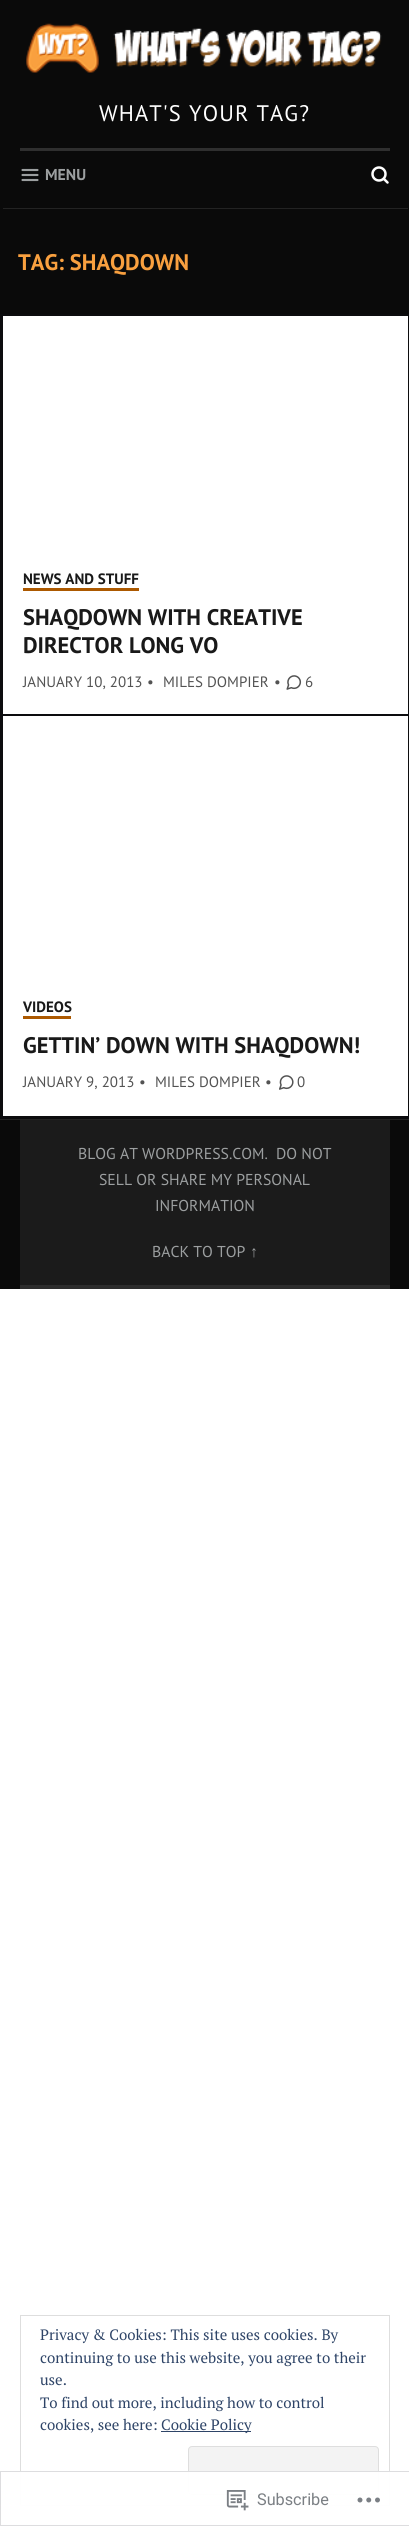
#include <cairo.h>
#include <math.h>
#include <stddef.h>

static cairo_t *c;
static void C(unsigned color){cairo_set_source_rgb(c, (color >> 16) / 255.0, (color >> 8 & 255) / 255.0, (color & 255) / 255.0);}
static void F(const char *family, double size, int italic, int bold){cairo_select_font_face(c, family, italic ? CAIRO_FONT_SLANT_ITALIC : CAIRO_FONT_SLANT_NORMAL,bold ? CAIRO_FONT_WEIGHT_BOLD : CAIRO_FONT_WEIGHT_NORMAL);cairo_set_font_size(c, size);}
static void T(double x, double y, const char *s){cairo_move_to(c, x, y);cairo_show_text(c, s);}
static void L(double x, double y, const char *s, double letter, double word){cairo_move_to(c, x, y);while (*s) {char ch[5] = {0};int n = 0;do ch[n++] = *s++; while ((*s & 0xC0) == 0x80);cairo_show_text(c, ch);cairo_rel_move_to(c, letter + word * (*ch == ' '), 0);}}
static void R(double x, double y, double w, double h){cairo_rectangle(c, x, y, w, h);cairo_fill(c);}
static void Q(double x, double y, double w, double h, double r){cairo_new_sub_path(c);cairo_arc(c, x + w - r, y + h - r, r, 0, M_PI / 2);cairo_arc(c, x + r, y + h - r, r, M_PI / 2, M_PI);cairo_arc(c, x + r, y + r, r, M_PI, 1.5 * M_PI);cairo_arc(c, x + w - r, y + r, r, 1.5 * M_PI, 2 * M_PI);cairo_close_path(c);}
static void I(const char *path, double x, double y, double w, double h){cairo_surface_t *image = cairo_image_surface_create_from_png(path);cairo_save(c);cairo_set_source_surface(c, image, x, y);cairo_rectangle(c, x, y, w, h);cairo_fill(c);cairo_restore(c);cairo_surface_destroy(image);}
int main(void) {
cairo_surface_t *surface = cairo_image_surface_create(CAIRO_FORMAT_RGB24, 409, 2526);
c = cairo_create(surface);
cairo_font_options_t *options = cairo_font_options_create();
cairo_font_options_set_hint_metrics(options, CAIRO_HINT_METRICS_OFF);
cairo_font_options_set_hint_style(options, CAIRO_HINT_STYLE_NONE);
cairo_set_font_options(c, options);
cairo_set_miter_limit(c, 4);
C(0xffffff);
cairo_paint(c);
C(0x0a0a0a);
R(0,0,409,314);
I("1.png",26,23,356,50);
F("PT Sans",22.5,0,0);
C(0xffffff);
L(99,121,"WHAT'S YOUR TAG?",1.1,0);
C(0x2f2f2f);
R(20,148,370,3);
I("2.png",21,168,18,14);
F("PT Sans",15.75,0,1);
C(0x9c9fa0);
T(45,180,"MENU");
cairo_new_path(c);
cairo_arc(c,379,174,6.5,0,2 * M_PI);
C(0xffffff);
cairo_set_line_width(c,2.5);
cairo_stroke(c);
cairo_new_path(c);
cairo_move_to(c,387.5,182.5);
cairo_line_to(c,384,179);
cairo_set_line_cap(c,CAIRO_LINE_CAP_ROUND);
cairo_set_line_join(c,CAIRO_LINE_JOIN_ROUND);
cairo_stroke(c);
C(0x232323);
R(3,208,405,1);
F("PT Sans",22.5,0,1);
C(0xf9a03f);
T(18,270,"TAG: SHAQDOWN");
cairo_rectangle(c,1.5,315.5,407,402);
C(0x0c0c0e);
cairo_set_line_width(c,3);
cairo_set_line_cap(c,CAIRO_LINE_CAP_BUTT);
cairo_set_line_join(c,CAIRO_LINE_JOIN_MITER);
cairo_stroke(c);
C(0xffffff);
R(3,316,405,398);
F("PT Sans",15,0,1);
C(0x191919);
T(23,584,"NEWS AND STUFF");
C(0xac5900);
R(23,588,116,3);
F("PT Sans",22.5,0,1);
C(0x191919);
T(23,625,"SHAQDOWN WITH CREATIVE");
T(23,653,"DIRECTOR LONG VO");
F("PT Sans",15,0,0);
C(0x535353);
T(23,687,"JANUARY 10, 2013");
T(147,687,"•");
T(163,687,"MILES DOMPIER");
T(274,687,"•");
I("3.png",286,675,16,15);
T(305,687,"6");
cairo_rectangle(c,1.5,715.5,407,402);
C(0x0c0c0e);
cairo_stroke(c);
C(0xffffff);
R(3,716,405,400);
F("PT Sans",15,0,1);
C(0x191919);
T(23,1012,"VIDEOS");
C(0xac5900);
R(23,1016,48,3);
F("PT Sans",22.5,0,1);
C(0x191919);
T(23,1053,"GETTIN’ DOWN WITH SHAQDOWN!");
F("PT Sans",15,0,0);
C(0x535353);
T(23,1087,"JANUARY 9, 2013");
T(139,1087,"•");
T(155,1087,"MILES DOMPIER");
T(265,1087,"•");
I("4.png",279,1075,15,15);
T(297,1087,"0");
C(0x0a0a0a);
R(0,1120,409,169);
C(0x232323);
R(0,1119,409,1);
C(0x1b1b1b);
R(20,1120,370,165);
C(0x2d2d2d);
R(20,1285,370,4);
F("PT Sans",15.75,0,0);
C(0x9c9fa0);
T(78,1159,"BLOG AT WORDPRESS.COM.");
T(276,1159,"DO NOT");
T(99,1185,"SELL OR SHARE MY PERSONAL");
T(155,1211,"INFORMATION");
T(152,1257,"BACK TO TOP");
F("Liberation Serif",15.75,0,0);
T(250,1257,"↑");
cairo_rectangle(c,20.5,2315.5,369,190);
C(0xdedede);
cairo_set_line_width(c,1);
cairo_stroke(c);
F("PT Serif",15,0,0);
C(0x2e4467);
T(40,2340,"Privacy & Cookies: This site uses cookies. By");
T(40,2363,"continuing to use this website, you agree to their");
T(40,2385,"use.");
T(40,2408,"To find out more, including how to control");
T(40,2430,"cookies, see here:");
R(161,2431,90,1);
T(161,2430,"Cookie Policy");
C(0xf3f3f3);
Q(188.5,2446.5,190,48,3.5);
cairo_fill_preserve(c);
C(0xdedede);
cairo_stroke(c);
cairo_set_source_rgba(c,1,1,1,0.98);
R(20,2471,370,35);
cairo_rectangle(c,.5,2471.5,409,54);
cairo_set_source_rgba(c,0.863,0.863,0.871,0.98);
cairo_stroke(c);
I("5.png",226,2490,23,21);
F("Roboto",16.25,0,0);
C(0x7b7f84);
T(257,2505,"Subscribe");
I("6.png",357,2497,23,6);
cairo_surface_write_to_png(surface, "o.png");
cairo_font_options_destroy(options);
cairo_destroy(c);
cairo_surface_destroy(surface);
return 0;
}
